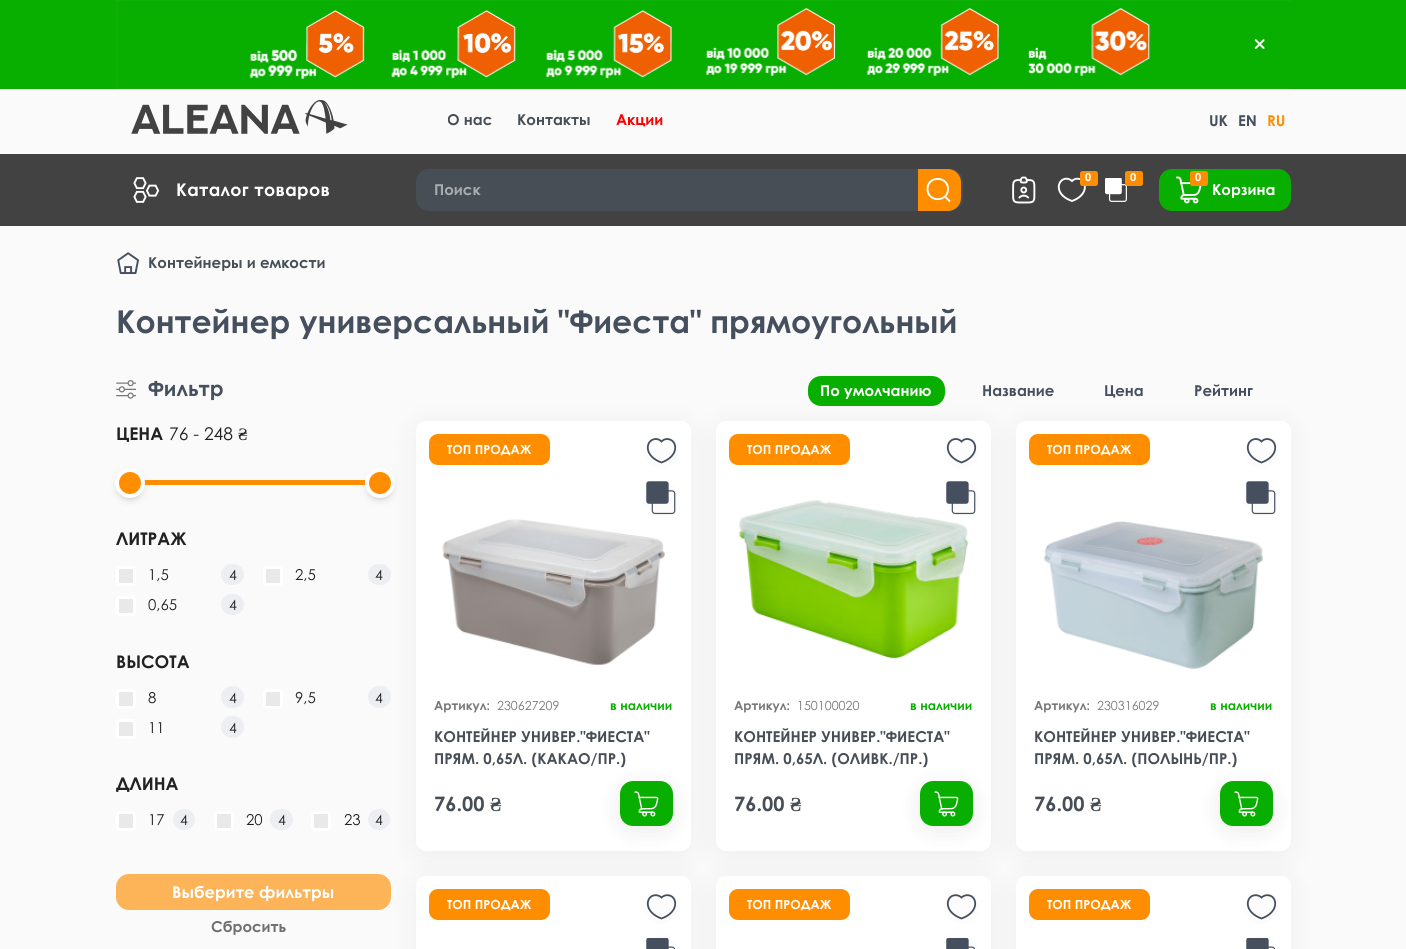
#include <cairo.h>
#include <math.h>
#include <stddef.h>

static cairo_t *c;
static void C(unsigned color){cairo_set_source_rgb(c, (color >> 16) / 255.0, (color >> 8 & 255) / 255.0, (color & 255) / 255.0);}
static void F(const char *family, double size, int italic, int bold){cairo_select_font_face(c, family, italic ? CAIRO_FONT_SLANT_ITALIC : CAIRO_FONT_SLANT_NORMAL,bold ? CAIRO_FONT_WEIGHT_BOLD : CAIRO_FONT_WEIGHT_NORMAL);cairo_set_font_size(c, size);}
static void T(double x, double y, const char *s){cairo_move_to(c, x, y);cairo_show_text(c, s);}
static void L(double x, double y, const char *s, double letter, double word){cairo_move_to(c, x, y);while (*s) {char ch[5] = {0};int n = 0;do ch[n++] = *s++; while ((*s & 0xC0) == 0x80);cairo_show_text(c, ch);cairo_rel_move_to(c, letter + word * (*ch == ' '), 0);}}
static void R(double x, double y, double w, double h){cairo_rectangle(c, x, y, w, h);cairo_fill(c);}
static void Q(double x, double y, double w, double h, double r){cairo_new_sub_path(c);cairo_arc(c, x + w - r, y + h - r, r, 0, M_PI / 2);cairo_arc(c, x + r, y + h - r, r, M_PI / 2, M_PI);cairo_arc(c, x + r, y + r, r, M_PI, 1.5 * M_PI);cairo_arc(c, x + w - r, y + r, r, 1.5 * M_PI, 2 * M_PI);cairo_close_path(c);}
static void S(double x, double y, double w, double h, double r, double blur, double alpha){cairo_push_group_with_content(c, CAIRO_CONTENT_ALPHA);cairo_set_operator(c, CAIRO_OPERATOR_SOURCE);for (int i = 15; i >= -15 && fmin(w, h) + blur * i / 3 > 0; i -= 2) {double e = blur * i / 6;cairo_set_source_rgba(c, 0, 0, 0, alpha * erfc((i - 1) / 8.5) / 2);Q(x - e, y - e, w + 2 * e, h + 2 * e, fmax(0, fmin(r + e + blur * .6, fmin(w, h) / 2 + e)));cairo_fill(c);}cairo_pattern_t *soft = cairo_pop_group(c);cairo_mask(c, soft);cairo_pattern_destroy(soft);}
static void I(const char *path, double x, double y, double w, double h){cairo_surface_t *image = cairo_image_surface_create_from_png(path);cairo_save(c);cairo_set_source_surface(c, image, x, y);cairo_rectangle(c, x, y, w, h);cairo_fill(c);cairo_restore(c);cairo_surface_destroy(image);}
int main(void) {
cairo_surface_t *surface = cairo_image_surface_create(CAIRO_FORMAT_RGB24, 1406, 949);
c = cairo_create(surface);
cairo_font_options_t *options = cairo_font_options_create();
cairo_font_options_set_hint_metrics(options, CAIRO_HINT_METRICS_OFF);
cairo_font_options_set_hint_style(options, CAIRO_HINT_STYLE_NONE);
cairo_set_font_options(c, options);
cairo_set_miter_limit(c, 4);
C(0xfafafa);
cairo_paint(c);
C(0x09af00);
R(0,0,1406,89);
I("1.png",116,0,1175,89);
I("2.png",1254,39,11,10);
I("3.png",131,100,217,34);
cairo_save(c);
Q(448,111,250,19,5);
cairo_clip(c);
F("Century Gothic",15,0,1);
C(0x474e55);
T(447,125,"О нас");
cairo_restore(c);
F("Century Gothic",15,0,1);
C(0x474e55);
T(517,125,"Контакты");
C(0xff0000);
T(616,125,"Акции");
C(0x454f5d);
T(1209,126,"UK");
T(1238,126,"EN");
C(0xff8d00);
T(1267,126,"RU");
C(0x424242);
R(0,154,1406,72);
I("4.png",133,177,27,26);
F("Century Gothic",17.5,0,1);
C(0xffffff);
L(176,196,"Каталог товаров",.3,0);
C(0x474e55);
Q(416,169,547,42,13);
cairo_fill(c);
F("Century Gothic",15,0,1);
C(0xaaadaf);
T(434,195,"Поиск");
C(0xff8d00);
cairo_new_path(c);
cairo_move_to(c,918,169);
cairo_line_to(c,948,169);
cairo_curve_to(c,955,169,961,175,961,182);
cairo_line_to(c,961,198);
cairo_curve_to(c,961,205,955,211,948,211);
cairo_line_to(c,918,211);
cairo_close_path(c);
cairo_fill(c);
cairo_new_path(c);
cairo_move_to(c,945,196.5);
cairo_line_to(c,950,201.5);
cairo_move_to(c,948,189);
cairo_curve_to(c,948,175.5,927.5,175.5,927.5,189);
cairo_curve_to(c,927.5,202.5,948,202.5,948,189);
cairo_close_path(c);
C(0xffffff);
cairo_set_line_width(c,1.9);
cairo_set_line_join(c,CAIRO_LINE_JOIN_ROUND);
cairo_stroke(c);
I("5.png",1012,176,24,28);
cairo_new_path(c);
cairo_move_to(c,1081,179.5);
cairo_curve_to(c,1075.5,177,1072,181,1072,181);
cairo_curve_to(c,1072,181,1068,177,1063,179.5);
cairo_curve_to(c,1056.5,183,1056,195.5,1072,201);
cairo_curve_to(c,1087.5,195.5,1087,183,1081,179.5);
cairo_close_path(c);
cairo_set_line_cap(c,CAIRO_LINE_CAP_ROUND);
cairo_set_line_join(c,CAIRO_LINE_JOIN_MITER);
cairo_stroke(c);
C(0xff8d00);
Q(1080,171,18,15,2.5);
cairo_fill(c);
F("Century Gothic",11,0,1);
C(0xffffff);
T(1085,181,"0");
I("6.png",1105,178,22,24);
C(0xff8d00);
Q(1125,171,18,15,2.5);
cairo_fill(c);
C(0xffffff);
T(1130,181,"0");
C(0x09af00);
Q(1159,169,132,42,13);
cairo_fill(c);
I("7.png",1175,176,27,28);
C(0xff8d00);
Q(1190,171,18,15,2.5);
cairo_fill(c);
C(0xffffff);
T(1195,181,"0");
F("Century Gothic",15,0,1);
T(1212,195,"Корзина");
I("8.png",117,252,22,22);
C(0x474e55);
T(148,268,"Контейнеры и емкости");
F("Century Gothic",31.5,0,1);
C(0x454f5d);
T(116,333,"Контейнер универсальный \"Фиеста\" прямоугольный");
I("9.png",116,380,20,19);
F("Century Gothic",21,0,1);
T(148,396,"Фильтр");
F("Century Gothic",17.5,0,1);
C(0x222222);
T(116,440,"ЦЕНА");
F("Century Gothic",17.5,0,0);
T(169,440,"76 - 248");
F("Liberation Serif",17.5,0,0);
T(238,440,"₴");
C(0xff8d00);
R(144,480,222,5);
C(0xbbbbbb);
S(119,475,22,23,11,4,1);
C(0xff8d00);
cairo_arc(c,130,483,13,0,2 * M_PI);
cairo_fill_preserve(c);
C(0xffffff);
cairo_set_line_width(c,4);
cairo_set_line_cap(c,CAIRO_LINE_CAP_BUTT);
cairo_stroke(c);
C(0xbbbbbb);
S(369,475,22,23,11,4,1);
C(0x000000);
S(416,426,275,430,10,15,.05);
C(0xff8d00);
cairo_arc(c,380,483,13,0,2 * M_PI);
cairo_fill_preserve(c);
C(0xffffff);
cairo_stroke(c);
F("Century Gothic",17.5,0,1);
C(0x222222);
T(116,545,"ЛИТРАЖ");
C(0xe9e9e9);
Q(117.5,567.5,17,17,2.5);
cairo_fill_preserve(c);
C(0xffffff);
cairo_set_line_width(c,3);
cairo_stroke(c);
F("Century Gothic",15,0,0);
C(0x222222);
T(148,580,"1,5");
C(0xeceef2);
Q(221,564,23,21,10.5);
cairo_fill(c);
F("Century Gothic",14,0,0);
C(0x222222);
T(229,580,"4");
C(0xe9e9e9);
Q(264.5,567.5,17,17,2.5);
cairo_fill_preserve(c);
C(0xffffff);
cairo_stroke(c);
F("Century Gothic",15,0,0);
C(0x222222);
T(295,580,"2,5");
C(0xeceef2);
Q(368,564,23,21,10.5);
cairo_fill(c);
F("Century Gothic",14,0,0);
C(0x222222);
T(375,580,"4");
C(0xe9e9e9);
Q(117.5,597.5,17,17,2.5);
cairo_fill_preserve(c);
C(0xffffff);
cairo_stroke(c);
F("Century Gothic",15,0,0);
C(0x222222);
T(148,610,"0,65");
C(0xeceef2);
Q(221,594,23,21,10.5);
cairo_fill(c);
F("Century Gothic",14,0,0);
C(0x222222);
T(229,610,"4");
F("Century Gothic",17.5,0,1);
T(116,668,"ВЫСОТА");
C(0xe9e9e9);
Q(117.5,690.5,17,17,2.5);
cairo_fill_preserve(c);
C(0xffffff);
cairo_stroke(c);
F("Century Gothic",15,0,0);
C(0x222222);
T(148,703,"8");
C(0xeceef2);
Q(221,686,23,22,11);
cairo_fill(c);
F("Century Gothic",14,0,0);
C(0x222222);
T(229,703,"4");
C(0xe9e9e9);
Q(264.5,690.5,17,17,2.5);
cairo_fill_preserve(c);
C(0xffffff);
cairo_stroke(c);
F("Century Gothic",15,0,0);
C(0x222222);
T(295,703,"9,5");
C(0xeceef2);
Q(368,686,23,22,11);
cairo_fill(c);
F("Century Gothic",14,0,0);
C(0x222222);
T(375,703,"4");
C(0xe9e9e9);
Q(117.5,720.5,17,17,2.5);
cairo_fill_preserve(c);
C(0xffffff);
cairo_stroke(c);
F("Century Gothic",15,0,0);
C(0x222222);
T(148,733,"11");
C(0xeceef2);
Q(221,716,23,22,11);
cairo_fill(c);
F("Century Gothic",14,0,0);
C(0x222222);
T(229,733,"4");
F("Century Gothic",17.5,0,1);
T(116,790,"ДЛИНА");
C(0xe9e9e9);
Q(117.5,812.5,17,17,2.5);
cairo_fill_preserve(c);
C(0xffffff);
cairo_stroke(c);
F("Century Gothic",15,0,0);
C(0x222222);
T(148,825,"17");
C(0xeceef2);
Q(173,809,22,21,10.5);
cairo_fill(c);
F("Century Gothic",14,0,0);
C(0x222222);
T(180,825,"4");
C(0xe9e9e9);
Q(215.5,812.5,17,17,2.5);
cairo_fill_preserve(c);
C(0xffffff);
cairo_stroke(c);
F("Century Gothic",15,0,0);
C(0x222222);
T(246,825,"20");
C(0xeceef2);
Q(270,809,23,21,10.5);
cairo_fill(c);
F("Century Gothic",14,0,0);
C(0x222222);
T(278,825,"4");
C(0xe9e9e9);
Q(312.5,812.5,17,17,2.5);
cairo_fill_preserve(c);
C(0xffffff);
cairo_stroke(c);
F("Century Gothic",15,0,0);
C(0x222222);
T(344,825,"23");
C(0xeceef2);
Q(368,809,22,21,10.5);
cairo_fill(c);
F("Century Gothic",14,0,0);
C(0x222222);
T(375,825,"4");
C(0xffffff);
Q(416,421,275,430,10);
cairo_fill(c);
C(0x09af00);
Q(808,376,137,30,13);
cairo_fill(c);
C(0xfcfcfc);
cairo_arc(c,661.5,451.5,17.5,0,2 * M_PI);
cairo_fill(c);
cairo_new_path(c);
cairo_move_to(c,671,440);
cairo_curve_to(c,665.5,437,661.5,441.5,661.5,441.5);
cairo_curve_to(c,661.5,441.5,657.5,437,652,440);
cairo_curve_to(c,645.5,443.5,645,456.5,661.5,462.5);
cairo_curve_to(c,678,456.5,677.5,443.5,671,440);
cairo_close_path(c);
C(0x454f5d);
cairo_set_line_width(c,1.8);
cairo_set_line_cap(c,CAIRO_LINE_CAP_ROUND);
cairo_stroke(c);
C(0xfcfcfc);
cairo_arc(c,661.5,498.5,17.5,0,2 * M_PI);
cairo_fill(c);
I("11.png",646,481,30,34);
C(0x000000);
S(620,786,53,45,13,12.5,.08);
C(0x09af00);
Q(620,781,53,45,13);
cairo_fill(c);
C(0x000000);
S(716,426,275,430,10,15,.05);
C(0xffffff);
Q(716,421,275,430,10);
cairo_fill(c);
C(0x000000);
S(416,881,275,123,10,15,.05);
C(0xfdb358);
Q(116,874,275,36,13);
cairo_fill(c);
F("Century Gothic",16.25,0,1);
C(0xffffff);
T(172,898,"Выберите фильтры");
F("Century Gothic",15,0,1);
C(0x6e6e6e);
T(211,932,"Сбросить");
C(0xffffff);
T(820,396,"По умолчанию");
C(0x454f5d);
T(982,396,"Название");
T(1104,396,"Цена");
T(1194,396,"Рейтинг");
C(0xff8d00);
Q(429,434,121,31,9);
cairo_fill(c);
F("Century Gothic",12.5,0,1);
C(0xffffff);
T(447,454,"ТОП ПРОДАЖ");
I("10.png",442,519,223,147);
C(0x777777);
T(434,710,"Артикул:");
F("Century Gothic",12.5,0,0);
T(497,710,"230627209");
F("Century Gothic",12.5,0,1);
C(0x09af00);
T(610,710,"в наличии");
F("Century Gothic",15,0,1);
C(0x474e55);
T(434,742,"КОНТЕЙНЕР УНИВЕР.\"ФИЕСТА\"");
T(434,764,"ПРЯМ. 0,65Л. (КАКАО/ПР.)");
F("Century Gothic",20,0,1);
T(434,811,"76.00");
F("Liberation Serif",20,0,1);
T(490,811,"₴");
I("12.png",634,791,25,26);
C(0xff8d00);
Q(729,434,121,31,9);
cairo_fill(c);
F("Century Gothic",12.5,0,1);
C(0xffffff);
T(747,454,"ТОП ПРОДАЖ");
I("13.png",739,500,230,159);
C(0x777777);
T(734,710,"Артикул:");
F("Century Gothic",12.5,0,0);
T(797,710,"150100020");
F("Century Gothic",12.5,0,1);
C(0x09af00);
T(910,710,"в наличии");
F("Century Gothic",15,0,1);
C(0x474e55);
T(734,742,"КОНТЕЙНЕР УНИВЕР.\"ФИЕСТА\"");
T(734,764,"ПРЯМ. 0,65Л. (ОЛИВК./ПР.)");
F("Century Gothic",20,0,1);
T(734,811,"76.00");
F("Liberation Serif",20,0,1);
T(790,811,"₴");
C(0xfcfcfc);
cairo_new_path(c);
cairo_arc(c,961.5,451.5,17.5,0,2 * M_PI);
cairo_fill(c);
cairo_new_path(c);
cairo_move_to(c,971,440);
cairo_curve_to(c,965.5,437,961.5,441.5,961.5,441.5);
cairo_curve_to(c,961.5,441.5,957.5,437,952,440);
cairo_curve_to(c,945.5,443.5,945,456.5,961.5,462.5);
cairo_curve_to(c,978,456.5,977.5,443.5,971,440);
cairo_close_path(c);
C(0x454f5d);
cairo_stroke(c);
C(0xfcfcfc);
cairo_arc(c,961.5,498.5,17.5,0,2 * M_PI);
cairo_fill(c);
I("11.png",946,481,30,34);
C(0x000000);
S(920,786,53,45,13,12.5,.08);
C(0x09af00);
Q(920,781,53,45,13);
cairo_fill(c);
I("12.png",934,791,25,26);
C(0x000000);
S(1016,426,275,430,10,15,.05);
C(0xffffff);
Q(1016,421,275,430,10);
cairo_fill(c);
C(0xff8d00);
Q(1029,434,121,31,9);
cairo_fill(c);
F("Century Gothic",12.5,0,1);
C(0xffffff);
T(1047,454,"ТОП ПРОДАЖ");
I("14.png",1043,521,220,148);
C(0x777777);
T(1034,710,"Артикул:");
F("Century Gothic",12.5,0,0);
T(1097,710,"230316029");
F("Century Gothic",12.5,0,1);
C(0x09af00);
T(1210,710,"в наличии");
F("Century Gothic",15,0,1);
C(0x474e55);
T(1034,742,"КОНТЕЙНЕР УНИВЕР.\"ФИЕСТА\"");
T(1034,764,"ПРЯМ. 0,65Л. (ПОЛЫНЬ/ПР.)");
F("Century Gothic",20,0,1);
T(1034,811,"76.00");
F("Liberation Serif",20,0,1);
T(1090,811,"₴");
C(0xfcfcfc);
cairo_new_path(c);
cairo_arc(c,1261.5,451.5,17.5,0,2 * M_PI);
cairo_fill(c);
cairo_new_path(c);
cairo_move_to(c,1271,440);
cairo_curve_to(c,1265.5,437,1261.5,441.5,1261.5,441.5);
cairo_curve_to(c,1261.5,441.5,1257.5,437,1252,440);
cairo_curve_to(c,1245.5,443.5,1245,456.5,1261.5,462.5);
cairo_curve_to(c,1278,456.5,1277.5,443.5,1271,440);
cairo_close_path(c);
C(0x454f5d);
cairo_stroke(c);
C(0xfcfcfc);
cairo_arc(c,1261.5,498.5,17.5,0,2 * M_PI);
cairo_fill(c);
I("11.png",1246,481,30,34);
C(0x000000);
S(1220,786,53,45,13,12.5,.08);
C(0x09af00);
Q(1220,781,53,45,13);
cairo_fill(c);
I("12.png",1234,791,25,26);
C(0xffffff);
Q(416,876,275,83,10);
cairo_fill(c);
C(0xff8d00);
Q(429,889,121,31,9);
cairo_fill(c);
F("Century Gothic",12.5,0,1);
C(0xffffff);
T(447,909,"ТОП ПРОДАЖ");
C(0xfcfcfc);
cairo_new_path(c);
cairo_arc(c,661.5,906.5,17.5,0,2 * M_PI);
cairo_fill(c);
cairo_new_path(c);
cairo_move_to(c,671,896);
cairo_curve_to(c,665.5,893.5,661.5,897.5,661.5,897.5);
cairo_curve_to(c,661.5,897.5,657.5,893.5,652,896);
cairo_curve_to(c,645.5,899.5,645,912.5,661.5,918.5);
cairo_curve_to(c,678,912.5,677.5,899.5,671,896);
cairo_close_path(c);
C(0x454f5d);
cairo_stroke(c);
C(0xfcfcfc);
Q(644,936,35,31,17.5);
cairo_fill(c);
I("15.png",646,938,30,11);
C(0x000000);
S(716,881,275,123,10,15,.05);
C(0xffffff);
Q(716,876,275,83,10);
cairo_fill(c);
C(0xff8d00);
Q(729,889,121,31,9);
cairo_fill(c);
C(0xffffff);
T(747,909,"ТОП ПРОДАЖ");
C(0xfcfcfc);
cairo_new_path(c);
cairo_arc(c,961.5,906.5,17.5,0,2 * M_PI);
cairo_fill(c);
cairo_new_path(c);
cairo_move_to(c,971,896);
cairo_curve_to(c,965.5,893.5,961.5,897.5,961.5,897.5);
cairo_curve_to(c,961.5,897.5,957.5,893.5,952,896);
cairo_curve_to(c,945.5,899.5,945,912.5,961.5,918.5);
cairo_curve_to(c,978,912.5,977.5,899.5,971,896);
cairo_close_path(c);
C(0x454f5d);
cairo_stroke(c);
C(0xfcfcfc);
Q(944,936,35,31,17.5);
cairo_fill(c);
I("15.png",946,938,30,11);
C(0x000000);
S(1016,881,275,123,10,15,.05);
C(0xffffff);
Q(1016,876,275,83,10);
cairo_fill(c);
C(0xff8d00);
Q(1029,889,121,31,9);
cairo_fill(c);
C(0xffffff);
T(1047,909,"ТОП ПРОДАЖ");
C(0xfcfcfc);
cairo_new_path(c);
cairo_arc(c,1261.5,906.5,17.5,0,2 * M_PI);
cairo_fill(c);
cairo_new_path(c);
cairo_move_to(c,1271,896);
cairo_curve_to(c,1265.5,893.5,1261.5,897.5,1261.5,897.5);
cairo_curve_to(c,1261.5,897.5,1257.5,893.5,1252,896);
cairo_curve_to(c,1245.5,899.5,1245,912.5,1261.5,918.5);
cairo_curve_to(c,1278,912.5,1277.5,899.5,1271,896);
cairo_close_path(c);
C(0x454f5d);
cairo_stroke(c);
C(0xfcfcfc);
Q(1244,936,35,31,17.5);
cairo_fill(c);
I("15.png",1246,938,30,11);
cairo_surface_write_to_png(surface, "o.png");
cairo_font_options_destroy(options);
cairo_destroy(c);
cairo_surface_destroy(surface);
return 0;
}
